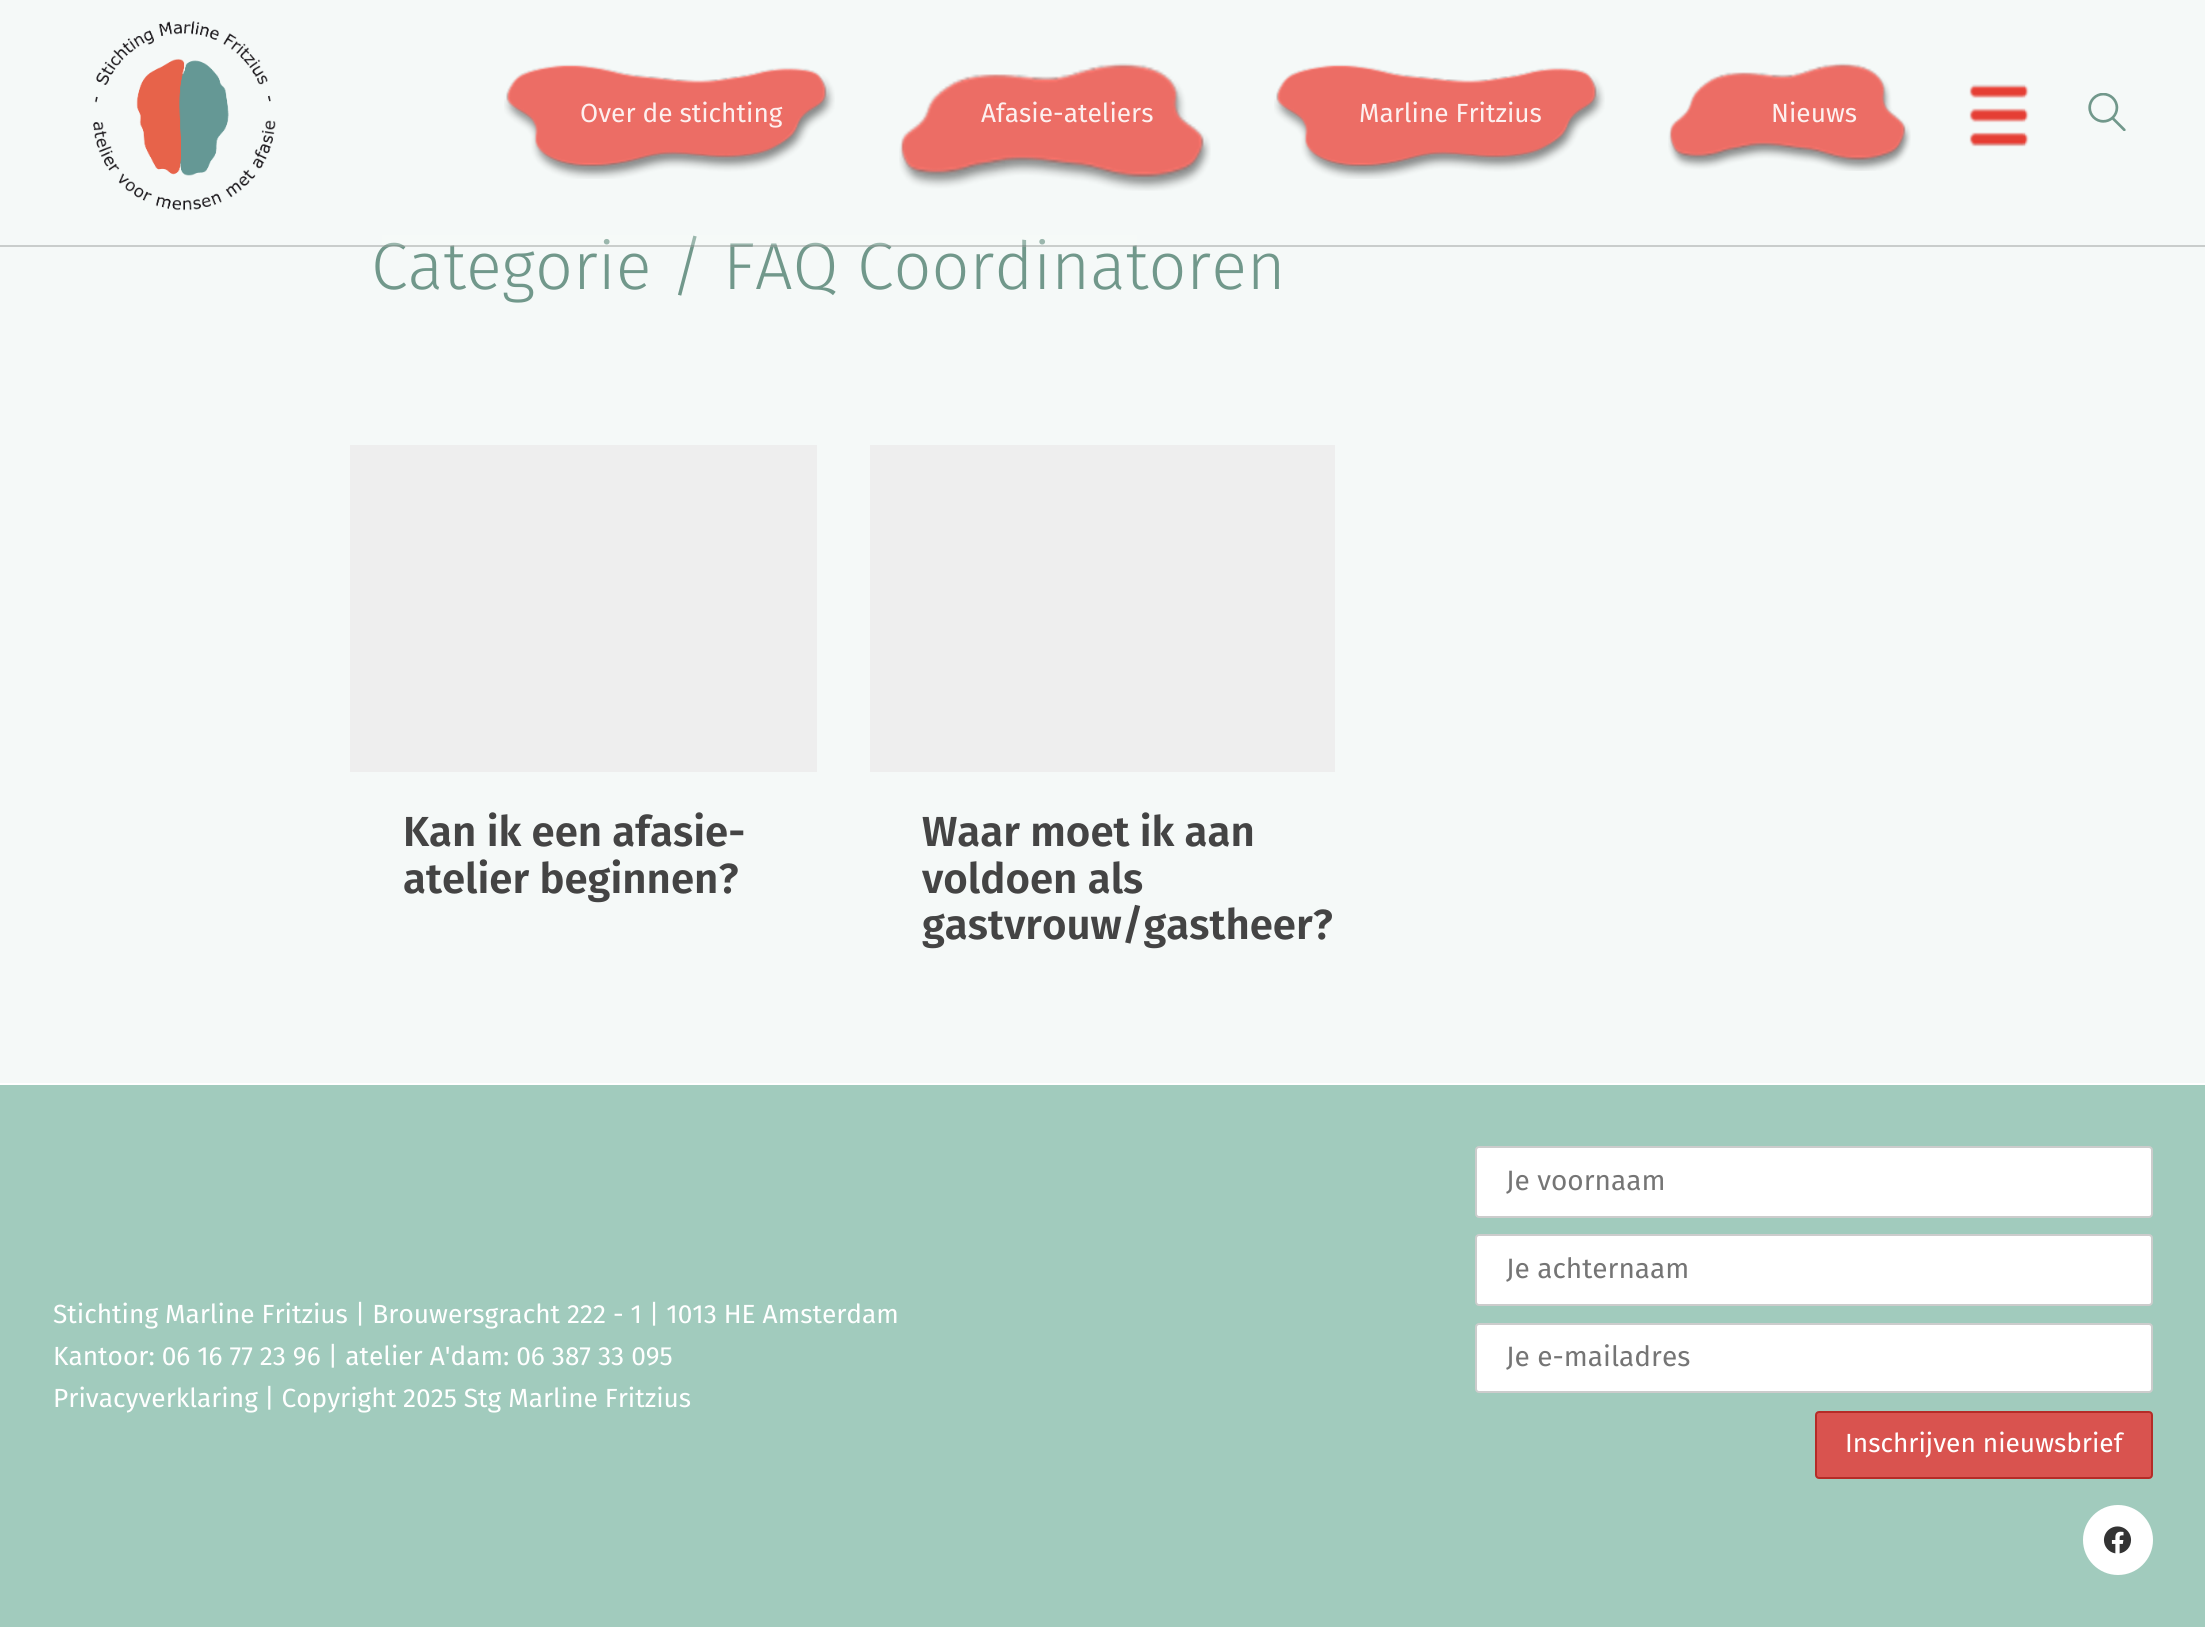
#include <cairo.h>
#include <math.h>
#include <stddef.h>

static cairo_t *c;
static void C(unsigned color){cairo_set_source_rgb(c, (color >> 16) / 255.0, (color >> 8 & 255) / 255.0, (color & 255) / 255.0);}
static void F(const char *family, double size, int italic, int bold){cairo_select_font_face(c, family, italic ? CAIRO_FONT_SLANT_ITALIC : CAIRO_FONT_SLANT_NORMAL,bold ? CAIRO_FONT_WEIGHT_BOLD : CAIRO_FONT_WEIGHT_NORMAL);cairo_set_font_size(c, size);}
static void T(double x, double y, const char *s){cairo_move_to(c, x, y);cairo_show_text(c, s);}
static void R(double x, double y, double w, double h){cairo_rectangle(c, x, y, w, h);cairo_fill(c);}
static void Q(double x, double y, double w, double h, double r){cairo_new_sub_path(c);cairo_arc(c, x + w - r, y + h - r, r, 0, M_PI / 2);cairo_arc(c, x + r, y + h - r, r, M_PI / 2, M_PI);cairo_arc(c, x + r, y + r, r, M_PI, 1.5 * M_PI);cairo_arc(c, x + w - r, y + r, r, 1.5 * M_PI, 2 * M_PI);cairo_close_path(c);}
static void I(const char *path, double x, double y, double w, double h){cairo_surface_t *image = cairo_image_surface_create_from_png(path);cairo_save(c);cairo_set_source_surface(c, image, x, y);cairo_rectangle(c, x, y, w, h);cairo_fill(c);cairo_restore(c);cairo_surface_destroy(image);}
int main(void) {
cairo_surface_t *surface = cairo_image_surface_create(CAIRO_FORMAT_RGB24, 2205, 1627);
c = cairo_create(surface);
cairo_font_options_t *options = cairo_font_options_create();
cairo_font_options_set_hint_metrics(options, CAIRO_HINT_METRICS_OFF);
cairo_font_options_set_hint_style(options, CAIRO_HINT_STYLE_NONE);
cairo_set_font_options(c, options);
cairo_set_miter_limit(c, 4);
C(0xa1cbbd);
cairo_paint(c);
C(0xf5f9f8);
R(0,0,2205,1083);
F("Fira Sans Light",66.5,0,0);
C(0x71988b);
T(371,289,"Categorie / FAQ Coordinatoren");
cairo_set_source_rgba(c,0.973,0.984,0.98,0.31);
R(382,235,755,12);
cairo_set_source_rgba(c,0.251,0.263,0.259,0.24);
R(0,245,2205,2);
I("1.png",93,21,183,190);
I("2.png",504,64,331,115);
F("Fira Sans",26.25,0,0);
C(0xfdf0ef);
T(580,122,"Over de stichting");
I("3.png",899,63,312,128);
T(981,122,"Afasie-ateliers");
I("4.png",1274,64,331,115);
T(1359,122,"Marline Fritzius");
I("5.png",1668,63,243,108);
T(1771,122,"Nieuws");
I("6.png",1969,84,60,63);
I("7.png",2088,93,38,38);
C(0xeeeeee);
R(350,445,467,327);
F("Fira Sans SemiBold",42,0,0);
C(0x444444);
T(403,846,"Kan ik een afasie-");
T(403,893,"atelier beginnen?");
C(0xeeeeee);
R(870,445,465,327);
C(0x444444);
T(922,846,"Waar moet ik aan");
T(922,893,"voldoen als");
T(922,939,"gastvrouw/gastheer?");
C(0xffffff);
R(0,1083,2205,2);
F("Fira Sans",26.25,0,0);
T(53,1323,"Stichting Marline Fritzius | Brouwersgracht 222 - 1 | 1013 HE Amsterdam");
T(53,1365,"Kantoor: 06 16 77 23 96 | atelier A'dam: 06 387 33 095");
T(53,1407,"Privacyverklaring");
T(264,1407,"| Copyright 2025 Stg Marline Fritzius");
Q(1476,1147,676,70,3);
cairo_fill_preserve(c);
C(0xcccccc);
cairo_stroke(c);
F("Fira Sans",28,0,0);
C(0x757575);
T(1506,1190,"Je voornaam");
C(0xffffff);
Q(1476,1235,676,70,3);
cairo_fill_preserve(c);
C(0xcccccc);
cairo_stroke(c);
C(0x757575);
T(1506,1278,"Je achternaam");
C(0xffffff);
Q(1476,1324,676,68,3);
cairo_fill_preserve(c);
C(0xcccccc);
cairo_stroke(c);
C(0x757575);
T(1506,1366,"Je e-mailadres");
C(0xd9534f);
Q(1816,1412,336,66,3);
cairo_fill_preserve(c);
C(0xb52b27);
cairo_stroke(c);
F("Fira Sans",26.25,0,0);
C(0xffffff);
T(1845,1452,"Inschrijven nieuwsbrief");
cairo_new_path(c);
cairo_arc(c,2118,1540,35,0,2 * M_PI);
cairo_fill(c);
I("8.png",2103,1526,29,28);
cairo_surface_write_to_png(surface, "o.png");
cairo_font_options_destroy(options);
cairo_destroy(c);
cairo_surface_destroy(surface);
return 0;
}
